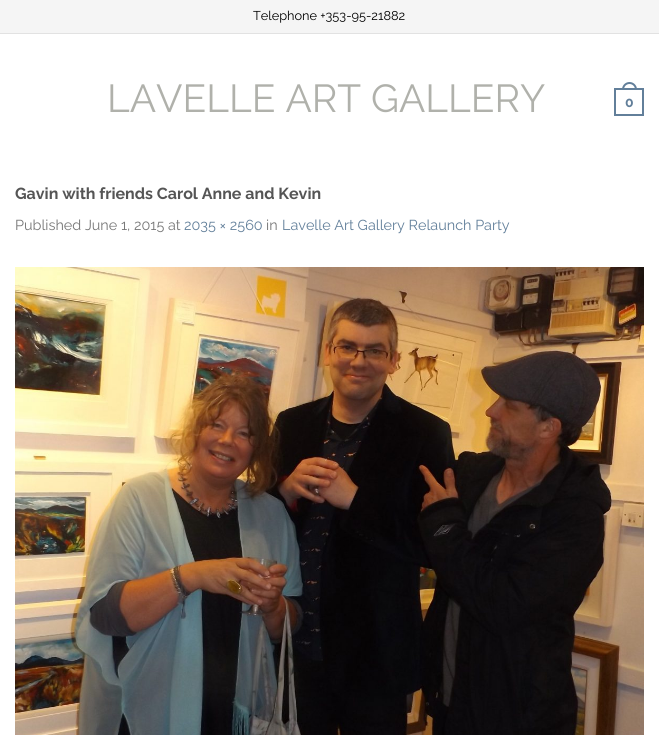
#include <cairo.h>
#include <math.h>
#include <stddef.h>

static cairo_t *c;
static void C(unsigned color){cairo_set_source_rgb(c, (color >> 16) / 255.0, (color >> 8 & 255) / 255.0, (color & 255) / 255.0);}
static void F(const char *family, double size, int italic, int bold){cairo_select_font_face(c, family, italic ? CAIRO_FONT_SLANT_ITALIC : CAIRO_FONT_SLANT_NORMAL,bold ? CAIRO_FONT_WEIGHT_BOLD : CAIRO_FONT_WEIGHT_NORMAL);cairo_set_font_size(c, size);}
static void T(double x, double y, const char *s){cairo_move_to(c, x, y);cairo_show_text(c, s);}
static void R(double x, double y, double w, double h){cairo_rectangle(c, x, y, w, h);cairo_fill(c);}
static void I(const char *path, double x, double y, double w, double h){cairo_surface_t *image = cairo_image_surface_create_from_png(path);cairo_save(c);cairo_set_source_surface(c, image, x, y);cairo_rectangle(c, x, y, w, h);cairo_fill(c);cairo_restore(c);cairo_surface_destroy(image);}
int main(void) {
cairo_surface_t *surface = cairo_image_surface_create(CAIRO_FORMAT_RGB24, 659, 735);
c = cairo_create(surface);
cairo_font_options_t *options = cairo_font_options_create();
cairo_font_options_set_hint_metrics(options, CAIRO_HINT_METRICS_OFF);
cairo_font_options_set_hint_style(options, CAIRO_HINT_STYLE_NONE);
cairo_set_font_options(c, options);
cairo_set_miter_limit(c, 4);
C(0xffffff);
cairo_paint(c);
C(0xf5f5f5);
R(0,0,659,33);
C(0xe2e2e2);
R(0,33,659,1);
F("Raleway",12.75,0,0);
C(0x000000);
T(253,20,"Telephone +353-95-21882");
F("Raleway",39,0,0);
C(0xb0b1ab);
T(107,112,"LAVELLE ART GALLERY");
cairo_new_path(c);
cairo_arc(c,629.5,89.5,6.5,0,2 * M_PI);
C(0x627f9a);
cairo_stroke(c);
C(0xffffff);
R(622,90,15,7);
cairo_rectangle(c,615,89,28,26);
C(0x627f9a);
cairo_stroke(c);
F("Raleway",14,0,1);
T(625,107,"0");
F("Raleway",16,0,1);
C(0x555555);
T(15,199,"Gavin with friends Carol Anne and Kevin");
F("Raleway",14.4,0,0);
C(0x777777);
T(15,230,"Published June 1, 2015 at");
C(0x627f9a);
T(184,230,"2035 × 2560");
C(0x777777);
T(266,230,"in");
C(0x627f9a);
T(282,230,"Lavelle Art Gallery Relaunch Party");
I("1.png",15,267,629,468);
cairo_surface_write_to_png(surface, "o.png");
cairo_font_options_destroy(options);
cairo_destroy(c);
cairo_surface_destroy(surface);
return 0;
}
